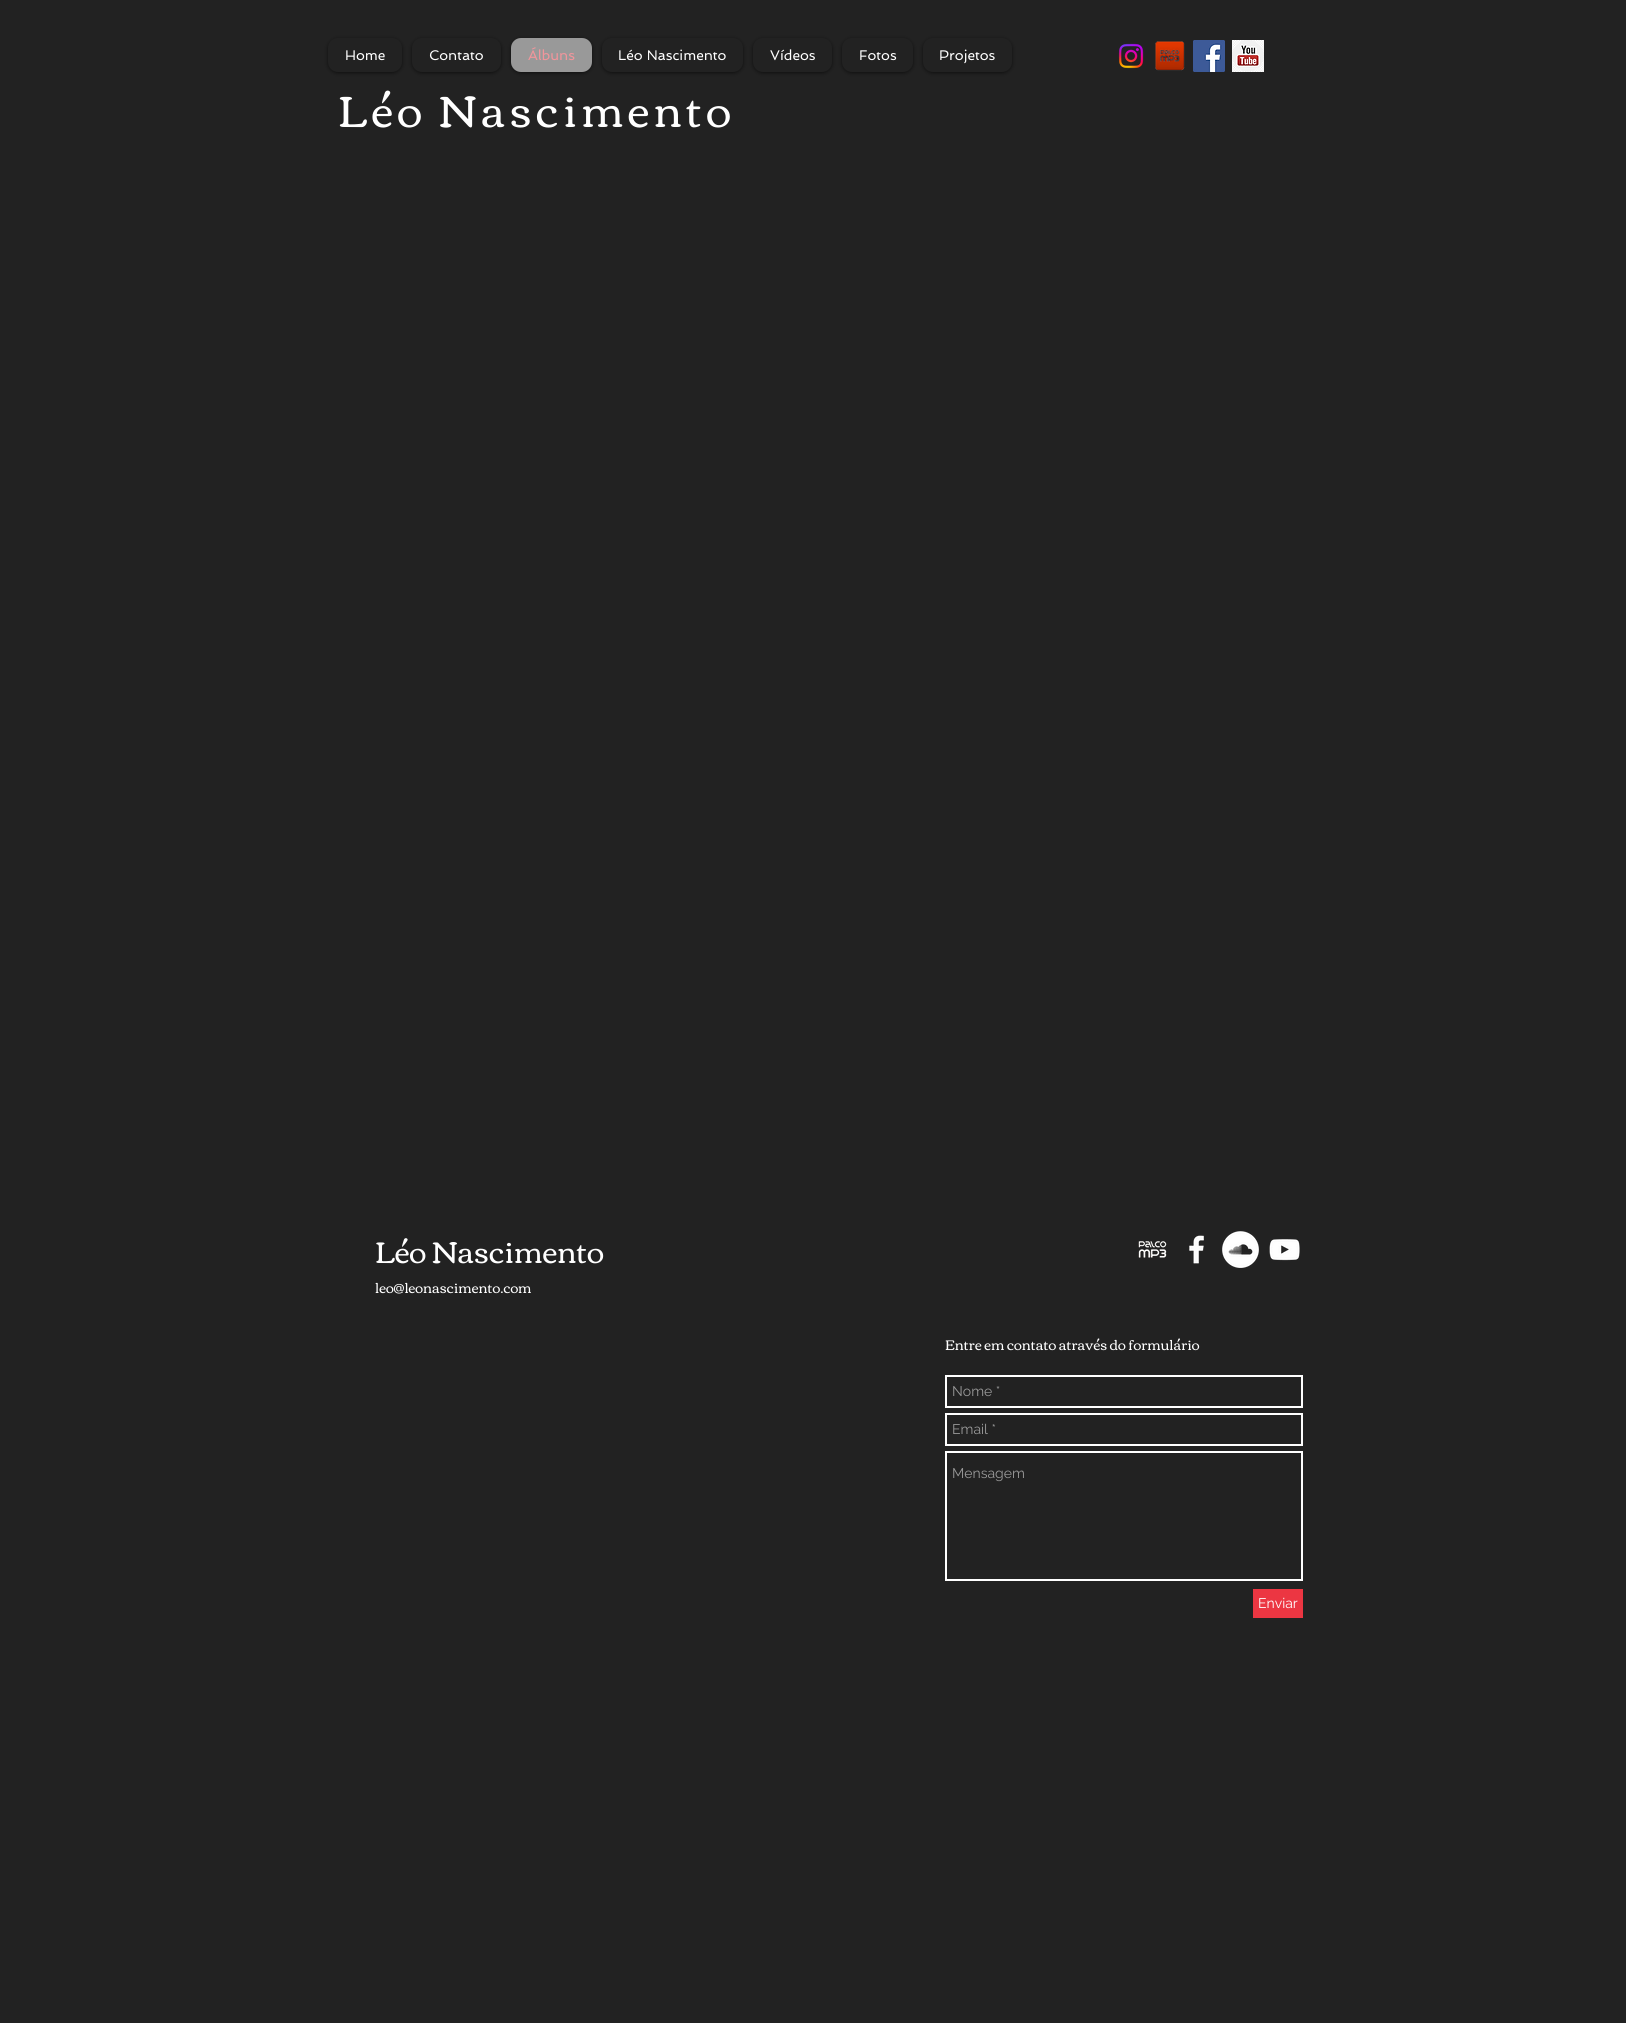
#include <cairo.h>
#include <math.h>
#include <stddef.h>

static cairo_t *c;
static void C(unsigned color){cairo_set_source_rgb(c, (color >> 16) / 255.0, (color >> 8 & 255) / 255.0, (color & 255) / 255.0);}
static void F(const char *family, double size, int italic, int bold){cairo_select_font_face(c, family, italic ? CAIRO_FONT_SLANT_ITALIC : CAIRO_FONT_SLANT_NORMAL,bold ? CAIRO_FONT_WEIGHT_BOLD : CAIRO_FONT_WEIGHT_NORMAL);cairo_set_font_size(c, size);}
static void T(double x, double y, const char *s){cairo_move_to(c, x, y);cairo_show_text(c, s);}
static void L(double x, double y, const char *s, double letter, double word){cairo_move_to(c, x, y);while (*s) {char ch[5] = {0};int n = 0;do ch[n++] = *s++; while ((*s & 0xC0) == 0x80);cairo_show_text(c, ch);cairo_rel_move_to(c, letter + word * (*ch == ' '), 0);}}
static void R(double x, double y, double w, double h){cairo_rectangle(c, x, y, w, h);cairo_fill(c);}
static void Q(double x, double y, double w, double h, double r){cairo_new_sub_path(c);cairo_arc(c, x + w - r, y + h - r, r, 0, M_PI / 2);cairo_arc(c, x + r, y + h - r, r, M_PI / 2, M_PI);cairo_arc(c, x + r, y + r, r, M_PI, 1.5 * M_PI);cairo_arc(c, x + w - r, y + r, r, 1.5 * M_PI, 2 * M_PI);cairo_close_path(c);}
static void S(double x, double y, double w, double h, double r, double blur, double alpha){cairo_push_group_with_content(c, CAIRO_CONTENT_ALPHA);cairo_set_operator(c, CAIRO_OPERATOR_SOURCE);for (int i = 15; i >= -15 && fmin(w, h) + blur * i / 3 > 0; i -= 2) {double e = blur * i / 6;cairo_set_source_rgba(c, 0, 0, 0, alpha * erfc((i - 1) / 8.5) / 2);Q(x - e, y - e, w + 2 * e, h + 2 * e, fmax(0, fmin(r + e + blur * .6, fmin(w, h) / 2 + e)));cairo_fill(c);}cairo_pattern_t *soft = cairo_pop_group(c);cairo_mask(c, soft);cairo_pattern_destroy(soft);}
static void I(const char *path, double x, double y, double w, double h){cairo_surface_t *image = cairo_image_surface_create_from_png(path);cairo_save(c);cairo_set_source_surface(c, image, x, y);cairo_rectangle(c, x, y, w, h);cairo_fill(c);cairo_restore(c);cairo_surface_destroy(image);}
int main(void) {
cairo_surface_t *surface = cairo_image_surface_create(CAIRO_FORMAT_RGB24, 1626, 2023);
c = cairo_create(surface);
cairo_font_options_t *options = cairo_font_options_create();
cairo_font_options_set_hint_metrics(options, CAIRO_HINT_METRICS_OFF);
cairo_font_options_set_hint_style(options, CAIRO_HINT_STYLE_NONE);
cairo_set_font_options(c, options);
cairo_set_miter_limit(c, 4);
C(0x222222);
cairo_paint(c);
C(0x000000);
S(328,39,74,34,10,2,.6);
C(0x222222);
Q(328,38,74,34,10);
cairo_fill(c);
F("Spinnaker",14,0,0);
C(0xffffff);
T(345,60,"Home");
C(0x000000);
S(412,39,89,34,10,2,.6);
C(0x222222);
Q(412,38,89,34,10);
cairo_fill(c);
C(0xffffff);
T(429,60,"Contato");
C(0x000000);
S(511,39,81,34,10,2,.6);
C(0x999999);
Q(511,38,81,34,10);
cairo_fill(c);
C(0xf2959b);
T(528,60,"Álbuns");
C(0x000000);
S(602,39,141,34,10,2,.6);
C(0x222222);
Q(602,38,141,34,10);
cairo_fill(c);
C(0xffffff);
T(618,60,"Léo Nascimento");
C(0x000000);
S(753,39,79,34,10,2,.6);
C(0x222222);
Q(753,38,79,34,10);
cairo_fill(c);
C(0xffffff);
T(770,60,"Vídeos");
C(0x000000);
S(842,39,71,34,10,2,.6);
C(0x222222);
Q(842,38,71,34,10);
cairo_fill(c);
C(0xffffff);
T(859,60,"Fotos");
C(0x000000);
S(923,39,89,34,10,2,.6);
C(0x222222);
Q(923,38,89,34,10);
cairo_fill(c);
C(0xffffff);
T(939,60,"Projetos");
I("1.png",1118,43,26,26);
I("2.png",1155,41,30,30);
I("3.png",1193,40,32,32);
I("4.png",1232,40,32,32);
F("Corben",44,0,0);
L(338,127,"Léo Nascimento",4.4,0);
F("Corben",30,0,0);
T(375,1263,"Léo Nascimento");
I("5.png",1138,1241,29,17);
I("6.png",1189,1235,15,29);
I("7.png",1222,1231,37,37);
I("8.png",1269,1239,31,22);
F("Corben",14,0,0);
T(375,1293,"leo@leonascimento.com");
T(945,1350,"Entre em contato através do formulário");
cairo_rectangle(c,946,1376,356,31);
cairo_stroke(c);
F("Raleway",14,0,0);
C(0x999999);
T(952,1396,"Nome *");
cairo_rectangle(c,946,1414,356,31);
C(0xffffff);
cairo_stroke(c);
C(0x999999);
T(952,1434,"Email *");
cairo_rectangle(c,946,1452,356,128);
C(0xffffff);
cairo_stroke(c);
C(0x999999);
T(952,1478,"Mensagem");
C(0xec3642);
R(1253,1589,50,29);
C(0xffffff);
T(1258,1608,"Enviar");
cairo_surface_write_to_png(surface, "o.png");
cairo_font_options_destroy(options);
cairo_destroy(c);
cairo_surface_destroy(surface);
return 0;
}
